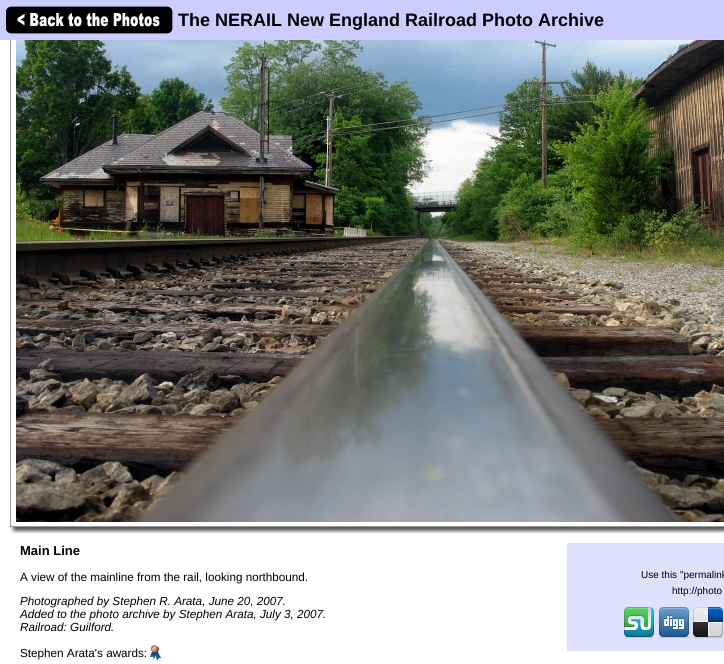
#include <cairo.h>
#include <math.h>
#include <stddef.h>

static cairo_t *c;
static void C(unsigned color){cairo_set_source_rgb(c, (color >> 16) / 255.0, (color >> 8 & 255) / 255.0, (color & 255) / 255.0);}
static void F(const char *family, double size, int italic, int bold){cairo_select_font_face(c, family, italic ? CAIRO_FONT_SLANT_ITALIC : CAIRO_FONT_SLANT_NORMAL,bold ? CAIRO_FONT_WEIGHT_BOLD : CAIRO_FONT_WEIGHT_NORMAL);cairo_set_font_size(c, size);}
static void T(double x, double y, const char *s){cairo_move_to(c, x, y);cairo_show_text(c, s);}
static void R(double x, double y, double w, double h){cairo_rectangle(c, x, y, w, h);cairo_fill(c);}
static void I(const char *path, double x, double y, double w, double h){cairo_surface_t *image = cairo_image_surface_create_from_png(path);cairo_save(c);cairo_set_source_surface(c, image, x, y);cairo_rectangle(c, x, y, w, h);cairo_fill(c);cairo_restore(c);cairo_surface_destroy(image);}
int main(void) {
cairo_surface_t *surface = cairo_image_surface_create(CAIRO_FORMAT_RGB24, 724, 664);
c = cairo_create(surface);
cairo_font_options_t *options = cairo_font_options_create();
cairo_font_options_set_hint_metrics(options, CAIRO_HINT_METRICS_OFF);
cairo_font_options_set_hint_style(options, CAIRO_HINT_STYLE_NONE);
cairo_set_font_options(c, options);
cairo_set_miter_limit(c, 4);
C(0xffffff);
cairo_paint(c);
cairo_rectangle(c,10.5,-.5,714,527);
C(0x9a9a9a);
cairo_set_line_width(c,1);
cairo_stroke(c);
C(0xccccff);
R(0,0,724,40);
I("1.png",6,6,167,28);
F("Liberation Sans",18,0,1);
C(0x000000);
T(178,26,"The NERAIL New England Railroad Photo Archive");
I("2.png",16,40,708,482);
I("3.png",10,527,714,6);
F("Liberation Sans",13,0,1);
T(20,555,"Main Line");
F("Liberation Sans",11.7,0,0);
T(20,581,"A view of the mainline from the rail, looking northbound.");
F("Liberation Sans",11.7,1,0);
T(20,605,"Photographed by Stephen R. Arata, June 20, 2007.");
T(20,618,"Added to the photo archive by Stephen Arata, July 3, 2007.");
T(20,631,"Railroad: Guilford.");
F("Liberation Sans",11.7,0,0);
T(20,657,"Stephen Arata's awards:");
I("4.png",150,645,11,15);
C(0xe0e0ff);
R(567,543,157,108);
F("Liberation Sans",10,0,0);
C(0x000000);
T(641,578,"Use this \"permalink");
T(672,594,"http://photo");
I("5.png",624,607,30,32);
I("6.png",659,607,30,32);
I("7.png",692,607,32,32);
cairo_surface_write_to_png(surface, "o.png");
cairo_font_options_destroy(options);
cairo_destroy(c);
cairo_surface_destroy(surface);
return 0;
}
